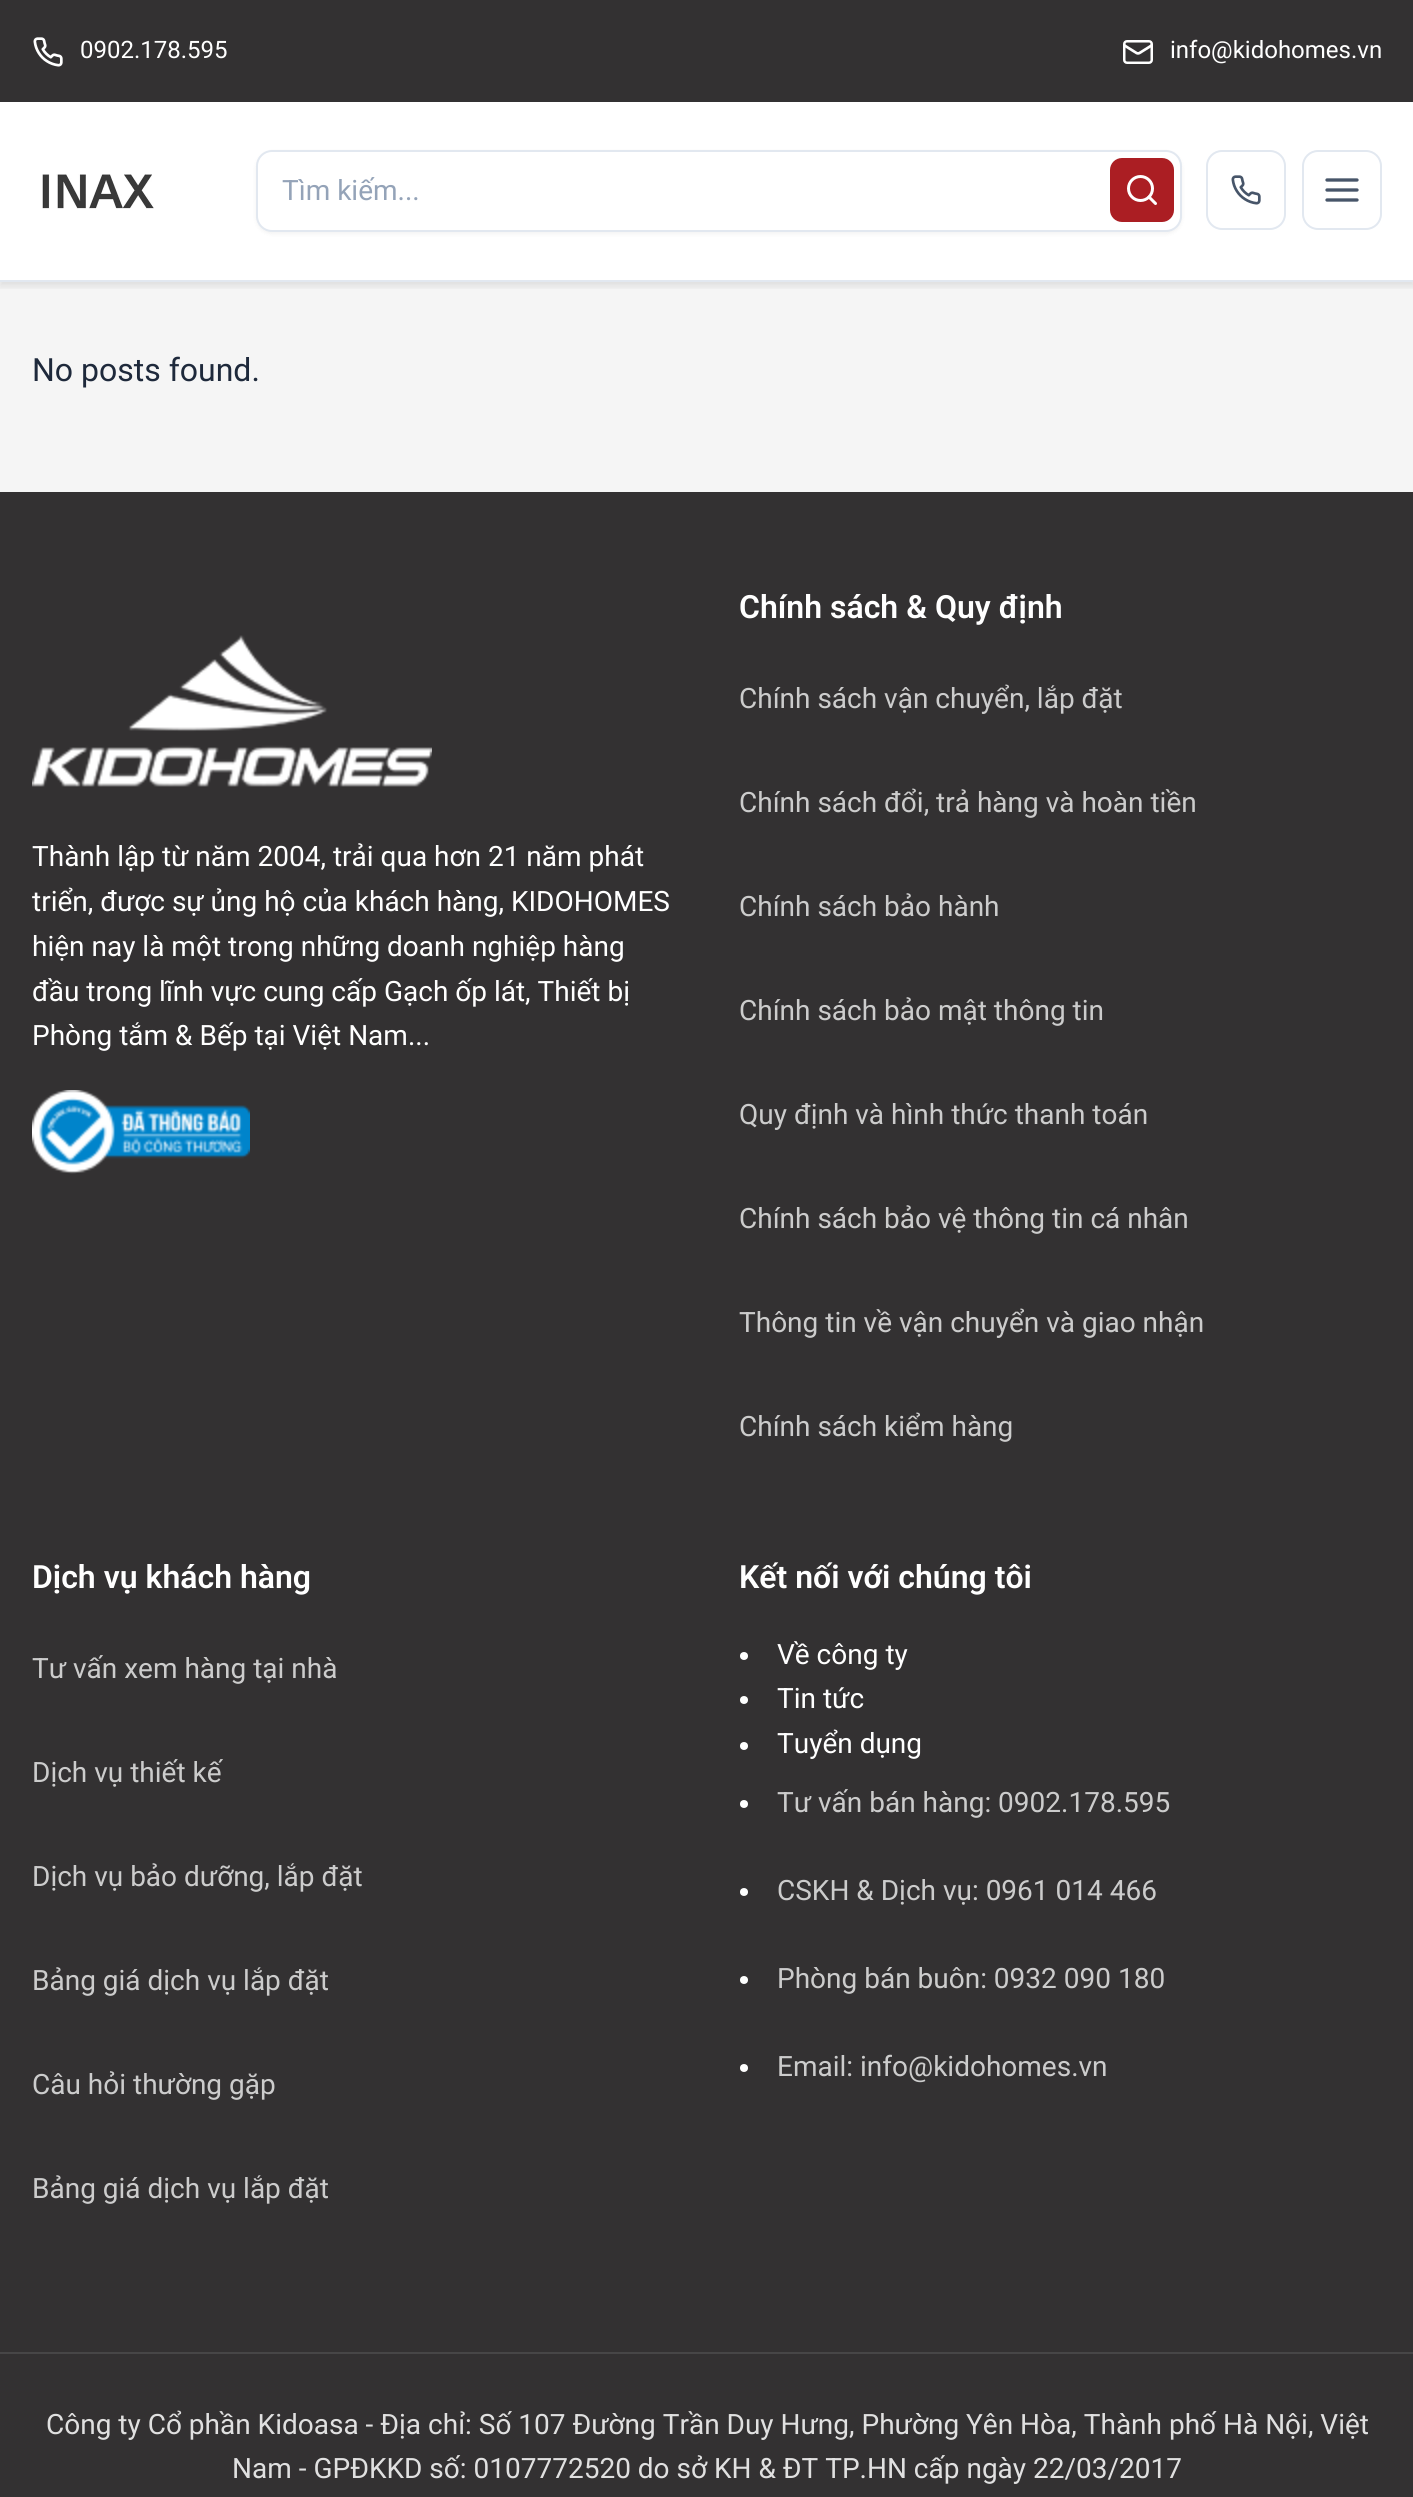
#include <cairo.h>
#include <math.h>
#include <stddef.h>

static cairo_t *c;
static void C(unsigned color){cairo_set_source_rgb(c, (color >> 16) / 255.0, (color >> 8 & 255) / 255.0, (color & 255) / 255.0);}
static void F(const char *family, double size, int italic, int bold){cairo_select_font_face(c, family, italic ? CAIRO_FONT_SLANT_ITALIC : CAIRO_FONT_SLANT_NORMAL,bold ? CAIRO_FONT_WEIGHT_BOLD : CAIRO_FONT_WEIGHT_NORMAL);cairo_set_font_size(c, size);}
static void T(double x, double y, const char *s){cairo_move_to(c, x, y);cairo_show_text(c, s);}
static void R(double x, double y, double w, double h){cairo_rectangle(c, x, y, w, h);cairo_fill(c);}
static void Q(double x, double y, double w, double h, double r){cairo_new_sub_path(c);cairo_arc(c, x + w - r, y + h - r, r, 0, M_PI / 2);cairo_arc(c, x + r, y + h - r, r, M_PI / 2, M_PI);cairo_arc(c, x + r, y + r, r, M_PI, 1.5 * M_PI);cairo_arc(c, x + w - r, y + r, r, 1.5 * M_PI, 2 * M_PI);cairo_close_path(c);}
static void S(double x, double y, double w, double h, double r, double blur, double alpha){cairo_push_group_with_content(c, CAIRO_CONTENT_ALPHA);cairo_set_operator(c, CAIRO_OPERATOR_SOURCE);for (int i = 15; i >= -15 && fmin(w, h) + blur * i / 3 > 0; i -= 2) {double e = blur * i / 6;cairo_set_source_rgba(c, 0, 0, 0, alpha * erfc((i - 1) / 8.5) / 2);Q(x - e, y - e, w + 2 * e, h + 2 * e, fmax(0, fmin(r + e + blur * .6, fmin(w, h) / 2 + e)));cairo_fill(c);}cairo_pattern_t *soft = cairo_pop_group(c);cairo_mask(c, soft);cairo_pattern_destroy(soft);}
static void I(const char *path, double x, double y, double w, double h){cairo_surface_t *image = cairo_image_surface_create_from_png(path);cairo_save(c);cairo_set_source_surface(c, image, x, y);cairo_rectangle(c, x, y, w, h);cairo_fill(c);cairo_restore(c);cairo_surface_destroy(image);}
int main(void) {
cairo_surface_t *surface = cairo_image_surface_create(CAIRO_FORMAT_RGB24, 1413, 2497);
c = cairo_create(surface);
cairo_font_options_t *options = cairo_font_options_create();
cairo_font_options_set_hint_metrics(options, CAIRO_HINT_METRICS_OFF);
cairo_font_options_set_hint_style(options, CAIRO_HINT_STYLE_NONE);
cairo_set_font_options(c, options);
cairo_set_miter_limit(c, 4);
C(0xf5f5f5);
cairo_paint(c);
C(0xffffff);
R(0,102,1413,178);
C(0x333132);
R(0,0,1413,102);
I("1.png",33,37,30,30);
F("Roboto",24,0,0);
C(0xffffff);
T(80,58,"0902.178.595");
Q(1124.25,41.25,27.5,21.5,2.75);
cairo_set_line_width(c,2.5);
cairo_stroke(c);
cairo_new_path(c);
cairo_move_to(c,1151.5,45.5);
cairo_line_to(c,1139.5,53);
cairo_curve_to(c,1138.5,53.5,1137.5,53.5,1136.5,53);
cairo_line_to(c,1124.5,45.5);
cairo_set_line_width(c,2.7);
cairo_set_line_cap(c,CAIRO_LINE_CAP_ROUND);
cairo_set_line_join(c,CAIRO_LINE_JOIN_ROUND);
cairo_stroke(c);
T(1170,58,"info@kidohomes.vn");
cairo_save(c);
cairo_rectangle(c,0,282,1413,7);
cairo_clip(c);
C(0x000000);
S(0,106,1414,180,0,4,.1);
cairo_restore(c);
C(0xe2e8f0);
R(0,280,1413,2);
I("2.png",42,174,112,35);
C(0x000000);
S(256,152,926,82,16,2,.05);
C(0xffffff);
Q(257,151,924,80,15);
cairo_fill_preserve(c);
C(0xe2e8f0);
cairo_set_line_width(c,2);
cairo_set_line_cap(c,CAIRO_LINE_CAP_BUTT);
cairo_set_line_join(c,CAIRO_LINE_JOIN_MITER);
cairo_stroke(c);
F("Roboto",28,0,0);
C(0x94a3b8);
T(282,200,"Tìm kiếm...");
C(0xab1e23);
Q(1110,158,64,64,12);
cairo_fill(c);
cairo_arc(c,1140.5,188.5,12,0,2 * M_PI);
C(0xffffff);
cairo_set_line_width(c,3);
cairo_stroke(c);
cairo_new_path(c);
cairo_move_to(c,1155.5,203.5);
cairo_line_to(c,1149,197);
cairo_set_line_cap(c,CAIRO_LINE_CAP_ROUND);
cairo_set_line_join(c,CAIRO_LINE_JOIN_ROUND);
cairo_stroke(c);
Q(1207,151,78,78,15);
C(0xe2e8f0);
cairo_set_line_width(c,2);
cairo_set_line_cap(c,CAIRO_LINE_CAP_BUTT);
cairo_set_line_join(c,CAIRO_LINE_JOIN_MITER);
cairo_stroke(c);
I("3.png",1231,175,30,30);
Q(1303,151,78,78,15);
cairo_stroke(c);
cairo_new_path(c);
cairo_move_to(c,1327,190);
cairo_line_to(c,1357,190);
cairo_move_to(c,1327,180);
cairo_line_to(c,1357,180);
cairo_move_to(c,1327,200);
cairo_line_to(c,1357,200);
C(0x475569);
cairo_set_line_width(c,3.3);
cairo_set_line_cap(c,CAIRO_LINE_CAP_ROUND);
cairo_set_line_join(c,CAIRO_LINE_JOIN_ROUND);
cairo_stroke(c);
F("Roboto",32,0,0);
C(0x1e293b);
T(32,381,"No posts found.");
C(0x333132);
R(0,492,1413,2005);
C(0x474647);
R(0,2352,1413,2);
I("4.png",32,635,400,152);
F("Roboto",28,0,0);
C(0xffffff);
T(32,866,"Thành lập từ năm 2004, trải qua hơn 21 năm phát");
T(32,911,"triển, được sự ủng hộ của khách hàng, KIDOHOMES");
T(32,956,"hiện nay là một trong những doanh nghiệp hàng");
T(32,1001,"đầu trong lĩnh vực cung cấp Gạch ốp lát, Thiết bị");
T(32,1045,"Phòng tắm & Bếp tại Việt Nam...");
I("5.png",32,1090,218,84);
F("Roboto SemiBold",32,0,0);
T(739,618,"Chính sách & Quy định");
F("Roboto",28,0,0);
C(0xcccccc);
T(739,708,"Chính sách vận chuyển, lắp đặt");
T(739,812,"Chính sách đổi, trả hàng và hoàn tiền");
T(739,916,"Chính sách bảo hành");
T(739,1020,"Chính sách bảo mật thông tin");
T(739,1124,"Quy định và hình thức thanh toán");
T(739,1228,"Chính sách bảo vệ thông tin cá nhân");
T(739,1332,"Thông tin về vận chuyển và giao nhận");
T(739,1436,"Chính sách kiểm hàng");
F("Roboto SemiBold",32,0,0);
C(0xffffff);
T(32,1588,"Dịch vụ khách hàng");
F("Roboto",28,0,0);
C(0xcccccc);
T(32,1678,"Tư vấn xem hàng tại nhà");
T(32,1782,"Dịch vụ thiết kế");
T(32,1886,"Dịch vụ bảo dưỡng, lắp đặt");
T(32,1990,"Bảng giá dịch vụ lắp đặt");
T(32,2094,"Câu hỏi thường gặp");
T(32,2198,"Bảng giá dịch vụ lắp đặt");
F("Roboto SemiBold",32,0,0);
C(0xffffff);
T(739,1588,"Kết nối với chúng tôi");
cairo_new_path(c);
cairo_arc(c,744,1656,4,0,2 * M_PI);
cairo_fill(c);
F("Roboto",28,0,0);
T(777,1664,"Về công ty");
cairo_new_path(c);
cairo_arc(c,744,1700,4,0,2 * M_PI);
cairo_fill(c);
T(777,1708,"Tin tức");
cairo_new_path(c);
cairo_arc(c,744,1746,4,0,2 * M_PI);
cairo_fill(c);
T(777,1753,"Tuyển dụng");
cairo_new_path(c);
cairo_arc(c,744,1804,4,0,2 * M_PI);
cairo_fill(c);
C(0xcccccc);
T(777,1812,"Tư vấn bán hàng: 0902.178.595");
C(0xffffff);
cairo_new_path(c);
cairo_arc(c,744,1892,4,0,2 * M_PI);
cairo_fill(c);
C(0xcccccc);
T(777,1900,"CSKH & Dịch vụ: 0961 014 466");
C(0xffffff);
cairo_new_path(c);
cairo_arc(c,744,1980,4,0,2 * M_PI);
cairo_fill(c);
C(0xcccccc);
T(777,1988,"Phòng bán buôn: 0932 090 180");
C(0xffffff);
cairo_new_path(c);
cairo_arc(c,744,2068,4,0,2 * M_PI);
cairo_fill(c);
C(0xcccccc);
T(777,2076,"Email: info@kidohomes.vn");
C(0xe0e0e0);
T(46,2434,"Công ty Cổ phần Kidoasa - Địa chỉ: Số 107 Đường Trần Duy Hưng, Phường Yên Hòa, Thành phố Hà Nội, Việt");
T(232,2478,"Nam - GPĐKKD số: 0107772520 do sở KH & ĐT TP.HN cấp ngày 22/03/2017");
cairo_surface_write_to_png(surface, "o.png");
cairo_font_options_destroy(options);
cairo_destroy(c);
cairo_surface_destroy(surface);
return 0;
}
